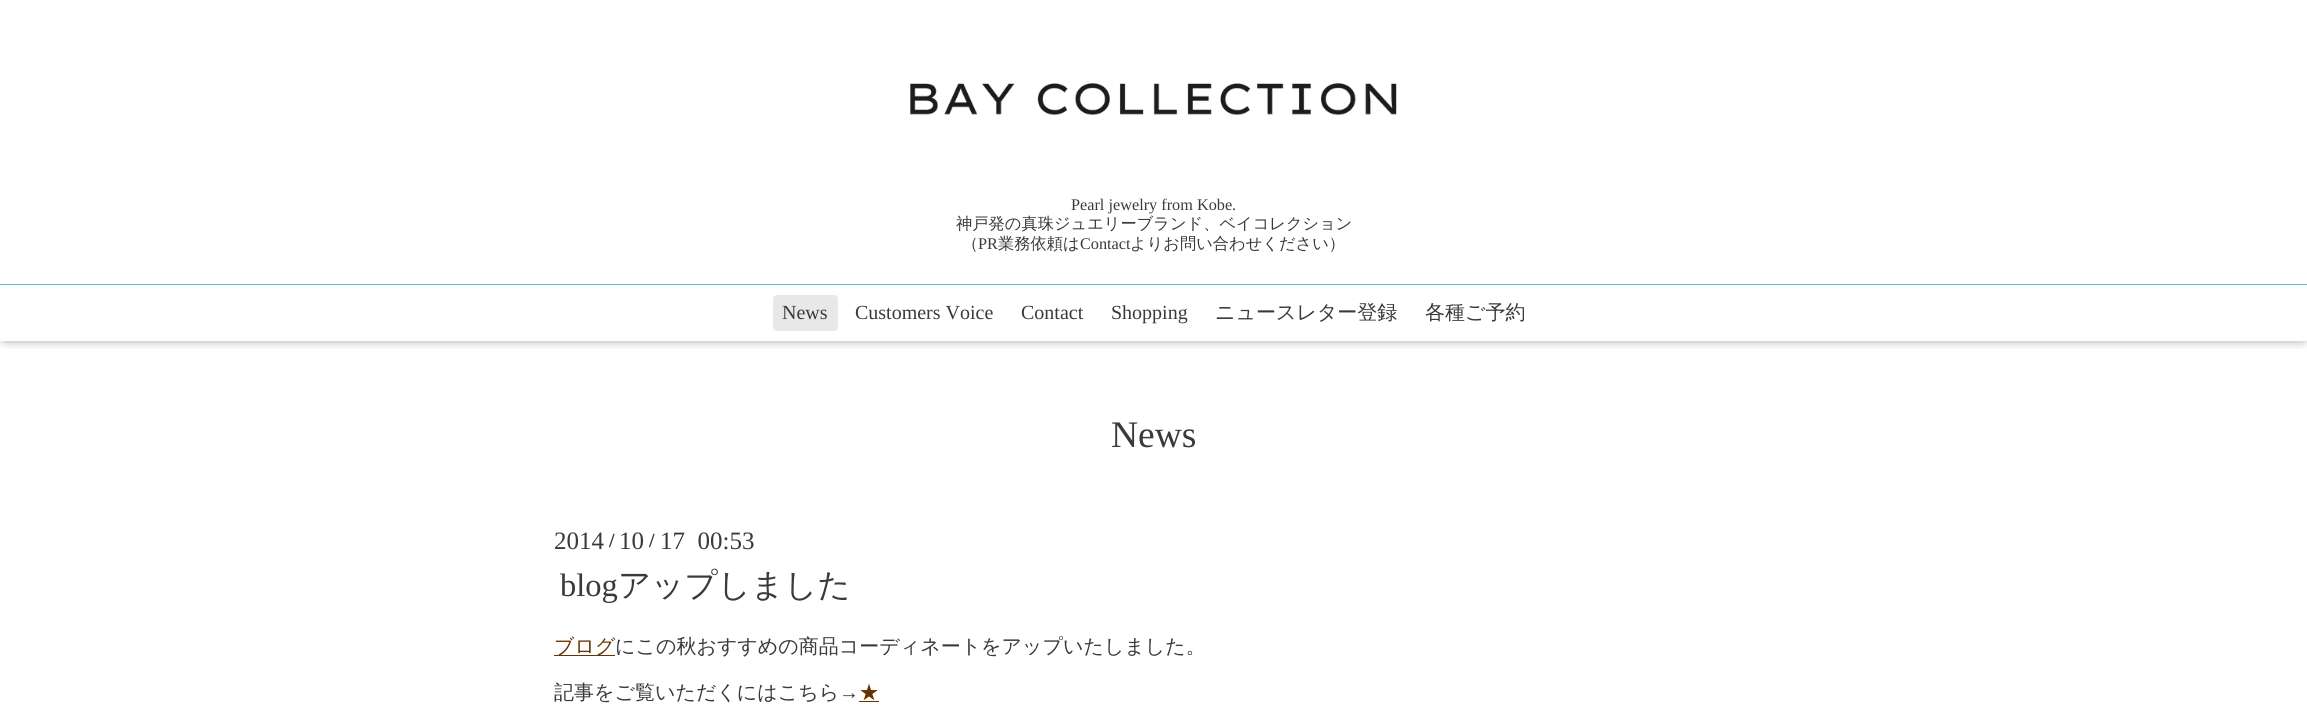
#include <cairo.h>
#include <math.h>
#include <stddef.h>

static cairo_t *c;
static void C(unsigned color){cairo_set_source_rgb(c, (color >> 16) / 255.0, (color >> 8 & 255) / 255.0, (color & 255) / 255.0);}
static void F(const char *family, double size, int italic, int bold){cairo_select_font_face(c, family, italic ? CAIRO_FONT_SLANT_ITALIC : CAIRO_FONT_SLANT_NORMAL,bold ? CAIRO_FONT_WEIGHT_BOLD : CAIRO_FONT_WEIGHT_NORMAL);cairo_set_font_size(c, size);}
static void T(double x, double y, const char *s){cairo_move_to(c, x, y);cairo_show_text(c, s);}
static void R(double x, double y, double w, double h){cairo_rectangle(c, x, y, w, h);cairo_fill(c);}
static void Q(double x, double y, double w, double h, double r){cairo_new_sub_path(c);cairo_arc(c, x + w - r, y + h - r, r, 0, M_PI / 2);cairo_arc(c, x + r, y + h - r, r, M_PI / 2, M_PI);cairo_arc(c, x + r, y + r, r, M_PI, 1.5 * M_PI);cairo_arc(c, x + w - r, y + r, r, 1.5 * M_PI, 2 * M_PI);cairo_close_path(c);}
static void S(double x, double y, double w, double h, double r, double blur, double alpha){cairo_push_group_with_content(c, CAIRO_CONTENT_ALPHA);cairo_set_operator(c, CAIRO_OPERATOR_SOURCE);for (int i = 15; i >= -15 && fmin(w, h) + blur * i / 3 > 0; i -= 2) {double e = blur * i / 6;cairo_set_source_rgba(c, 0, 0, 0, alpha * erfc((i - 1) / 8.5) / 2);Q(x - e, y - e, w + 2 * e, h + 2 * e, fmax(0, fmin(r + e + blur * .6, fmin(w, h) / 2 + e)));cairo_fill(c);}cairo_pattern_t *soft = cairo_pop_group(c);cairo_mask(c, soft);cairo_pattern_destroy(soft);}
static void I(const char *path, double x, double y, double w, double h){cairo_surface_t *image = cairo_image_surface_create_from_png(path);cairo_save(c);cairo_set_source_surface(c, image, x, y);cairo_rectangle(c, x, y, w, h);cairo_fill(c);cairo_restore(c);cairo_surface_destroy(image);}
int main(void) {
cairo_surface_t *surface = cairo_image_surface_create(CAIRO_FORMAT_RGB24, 2307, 710);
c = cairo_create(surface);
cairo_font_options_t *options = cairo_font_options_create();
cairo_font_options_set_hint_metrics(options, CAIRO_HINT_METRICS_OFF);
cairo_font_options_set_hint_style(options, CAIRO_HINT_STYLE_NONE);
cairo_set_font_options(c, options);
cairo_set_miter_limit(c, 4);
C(0xffffff);
cairo_paint(c);
cairo_save(c);
cairo_rectangle(c,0,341,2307,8);
cairo_clip(c);
C(0x000000);
S(5,6,2298,332,0,6,.6);
cairo_restore(c);
I("1.png",910,83,487,32);
F("Liberation Serif",16.25,0,0);
C(0x3a3a3a);
T(1071,210,"Pearl jewelry from Kobe.");
F("WenQuanYi Zen Hei Medium",16.25,0,0);
T(956,229,"神戸発の真珠ジュエリーブランド、ベイコレクション");
T(962,249,"（");
F("Liberation Serif",16.25,0,0);
T(978,249,"PR");
F("WenQuanYi Zen Hei Medium",16.25,0,0);
T(998,249,"業務依頼は");
F("Liberation Serif",16.25,0,0);
T(1080,249,"Contact");
F("WenQuanYi Zen Hei Medium",16.25,0,0);
T(1130,249,"よりお問い合わせください）");
C(0x5fbcc3);
R(0,284,2307,1);
C(0xe8e8e8);
Q(773,295,65,36,4);
cairo_fill(c);
F("Liberation Serif",20,0,0);
C(0x3a3a3a);
T(782,319,"News");
T(855,319,"Customers Voice");
T(1021,319,"Contact");
T(1111,319,"Shopping");
F("WenQuanYi Zen Hei Medium",20,0,0);
T(1215,319,"ニュースレター登録");
T(1425,319,"各種ご予約");
F("Liberation Serif",37.5,0,0);
T(1111,447,"News");
F("Liberation Serif",25,0,0);
T(554,549,"2014");
F("Liberation Serif",20,0,1);
T(609,547,"/");
F("Liberation Serif",25,0,0);
T(619,549,"10");
F("Liberation Serif",20,0,1);
T(649,547,"/");
F("Liberation Serif",25,0,0);
T(660,549,"17  00:53");
F("Liberation Serif",32.5,0,0);
T(560,596,"blog");
F("WenQuanYi Zen Hei Medium",32.5,0,0);
T(618,596,"アップしました");
C(0x663300);
R(554,655,61,1);
F("WenQuanYi Zen Hei Medium",20,0,0);
T(554,653,"ブログ");
C(0x3a3a3a);
T(615,653,"にこの秋おすすめの商品コーディネートをアップいたしました。");
T(554,699,"記事をご覧いただくにはこちら");
F("Liberation Serif",20,0,0);
T(839,699,"→");
F("WenQuanYi Zen Hei Medium",20,0,0);
C(0x663300);
T(859,699,"★");
R(859,701,20,1);
cairo_surface_write_to_png(surface, "o.png");
cairo_font_options_destroy(options);
cairo_destroy(c);
cairo_surface_destroy(surface);
return 0;
}
